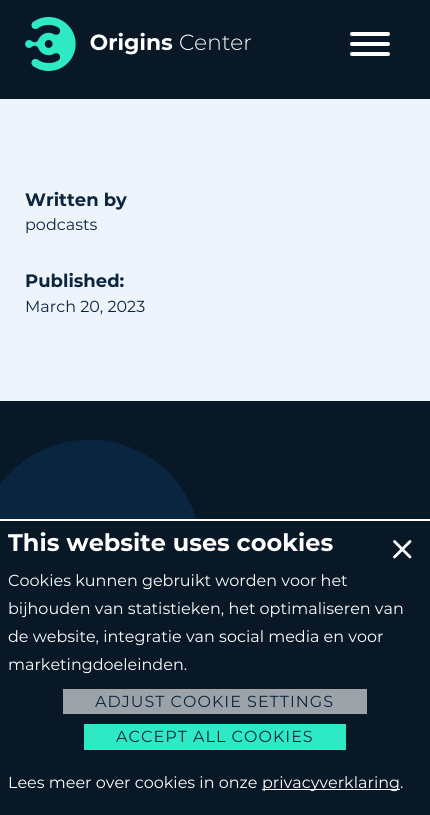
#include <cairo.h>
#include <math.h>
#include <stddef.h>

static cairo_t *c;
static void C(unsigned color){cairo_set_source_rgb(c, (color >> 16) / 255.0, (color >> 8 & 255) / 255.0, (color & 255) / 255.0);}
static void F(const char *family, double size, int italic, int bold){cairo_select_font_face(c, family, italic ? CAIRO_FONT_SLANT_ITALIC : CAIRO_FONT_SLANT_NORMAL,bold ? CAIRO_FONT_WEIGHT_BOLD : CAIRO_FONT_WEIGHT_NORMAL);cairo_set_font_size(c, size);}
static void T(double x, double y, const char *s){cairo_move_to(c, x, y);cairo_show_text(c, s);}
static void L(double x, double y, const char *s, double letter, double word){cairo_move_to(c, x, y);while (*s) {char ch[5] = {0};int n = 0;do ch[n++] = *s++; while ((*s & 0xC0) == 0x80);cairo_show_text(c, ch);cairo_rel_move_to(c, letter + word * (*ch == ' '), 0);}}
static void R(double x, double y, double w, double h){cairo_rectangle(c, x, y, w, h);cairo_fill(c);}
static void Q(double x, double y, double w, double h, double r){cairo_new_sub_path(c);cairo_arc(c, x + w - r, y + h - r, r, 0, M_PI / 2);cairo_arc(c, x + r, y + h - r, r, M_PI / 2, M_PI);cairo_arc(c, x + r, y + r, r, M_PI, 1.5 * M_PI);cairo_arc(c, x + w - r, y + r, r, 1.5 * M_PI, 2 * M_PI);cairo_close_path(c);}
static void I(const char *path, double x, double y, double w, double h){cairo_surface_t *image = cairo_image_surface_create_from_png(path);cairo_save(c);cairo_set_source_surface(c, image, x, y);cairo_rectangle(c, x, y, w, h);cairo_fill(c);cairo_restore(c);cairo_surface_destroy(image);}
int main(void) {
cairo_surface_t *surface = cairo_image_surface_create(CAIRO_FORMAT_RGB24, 430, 815);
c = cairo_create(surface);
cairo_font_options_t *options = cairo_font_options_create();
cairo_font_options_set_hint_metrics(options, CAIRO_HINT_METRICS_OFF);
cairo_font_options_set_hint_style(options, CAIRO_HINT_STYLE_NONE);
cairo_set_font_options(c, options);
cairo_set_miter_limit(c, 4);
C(0xeef4fb);
cairo_paint(c);
C(0x081826);
R(0,0,430,99);
I("1.png",25,17,226,54);
C(0xffffff);
Q(350,42,40,4,2);
cairo_fill(c);
Q(350,32,40,4,2);
cairo_fill(c);
Q(350,52,40,4,2);
cairo_fill(c);
F("Montserrat",18,0,1);
C(0x0a2540);
T(25,206,"Written by");
F("Montserrat",16,0,0);
T(25,230,"podcasts");
F("Montserrat",18,0,1);
T(25,287,"Published:");
F("Montserrat",16,0,0);
T(25,312,"March 20, 2023");
I("2.png",0,401,430,118);
C(0x081826);
R(0,521,430,294);
C(0xffffff);
R(0,519,430,2);
F("Montserrat",24,0,1);
T(8,551,"This website uses cookies");
cairo_new_path(c);
cairo_move_to(c,394.5,541.5);
cairo_line_to(c,410,557);
cairo_move_to(c,394.5,557);
cairo_line_to(c,410,541.5);
cairo_set_line_width(c,2.8);
cairo_set_line_cap(c,CAIRO_LINE_CAP_ROUND);
cairo_stroke(c);
F("Montserrat",16,0,0);
T(8,586,"Cookies kunnen gebruikt worden voor het");
T(8,614,"bijhouden van statistieken, het optimaliseren van");
T(8,642,"de website, integratie van social media en voor");
T(8,670,"marketingdoeleinden.");
C(0x9ca3a8);
R(63,689,304,25);
C(0x0a2540);
L(95,707,"ADJUST COOKIE SETTINGS",1,0);
C(0x2deac5);
R(84,724,262,26);
C(0x0a2540);
L(116,742,"ACCEPT ALL COOKIES",1,0);
C(0xffffff);
T(8,788,"Lees meer over cookies in onze");
R(262,789,138,1);
T(262,788,"privacyverklaring.");
cairo_surface_write_to_png(surface, "o.png");
cairo_font_options_destroy(options);
cairo_destroy(c);
cairo_surface_destroy(surface);
return 0;
}
